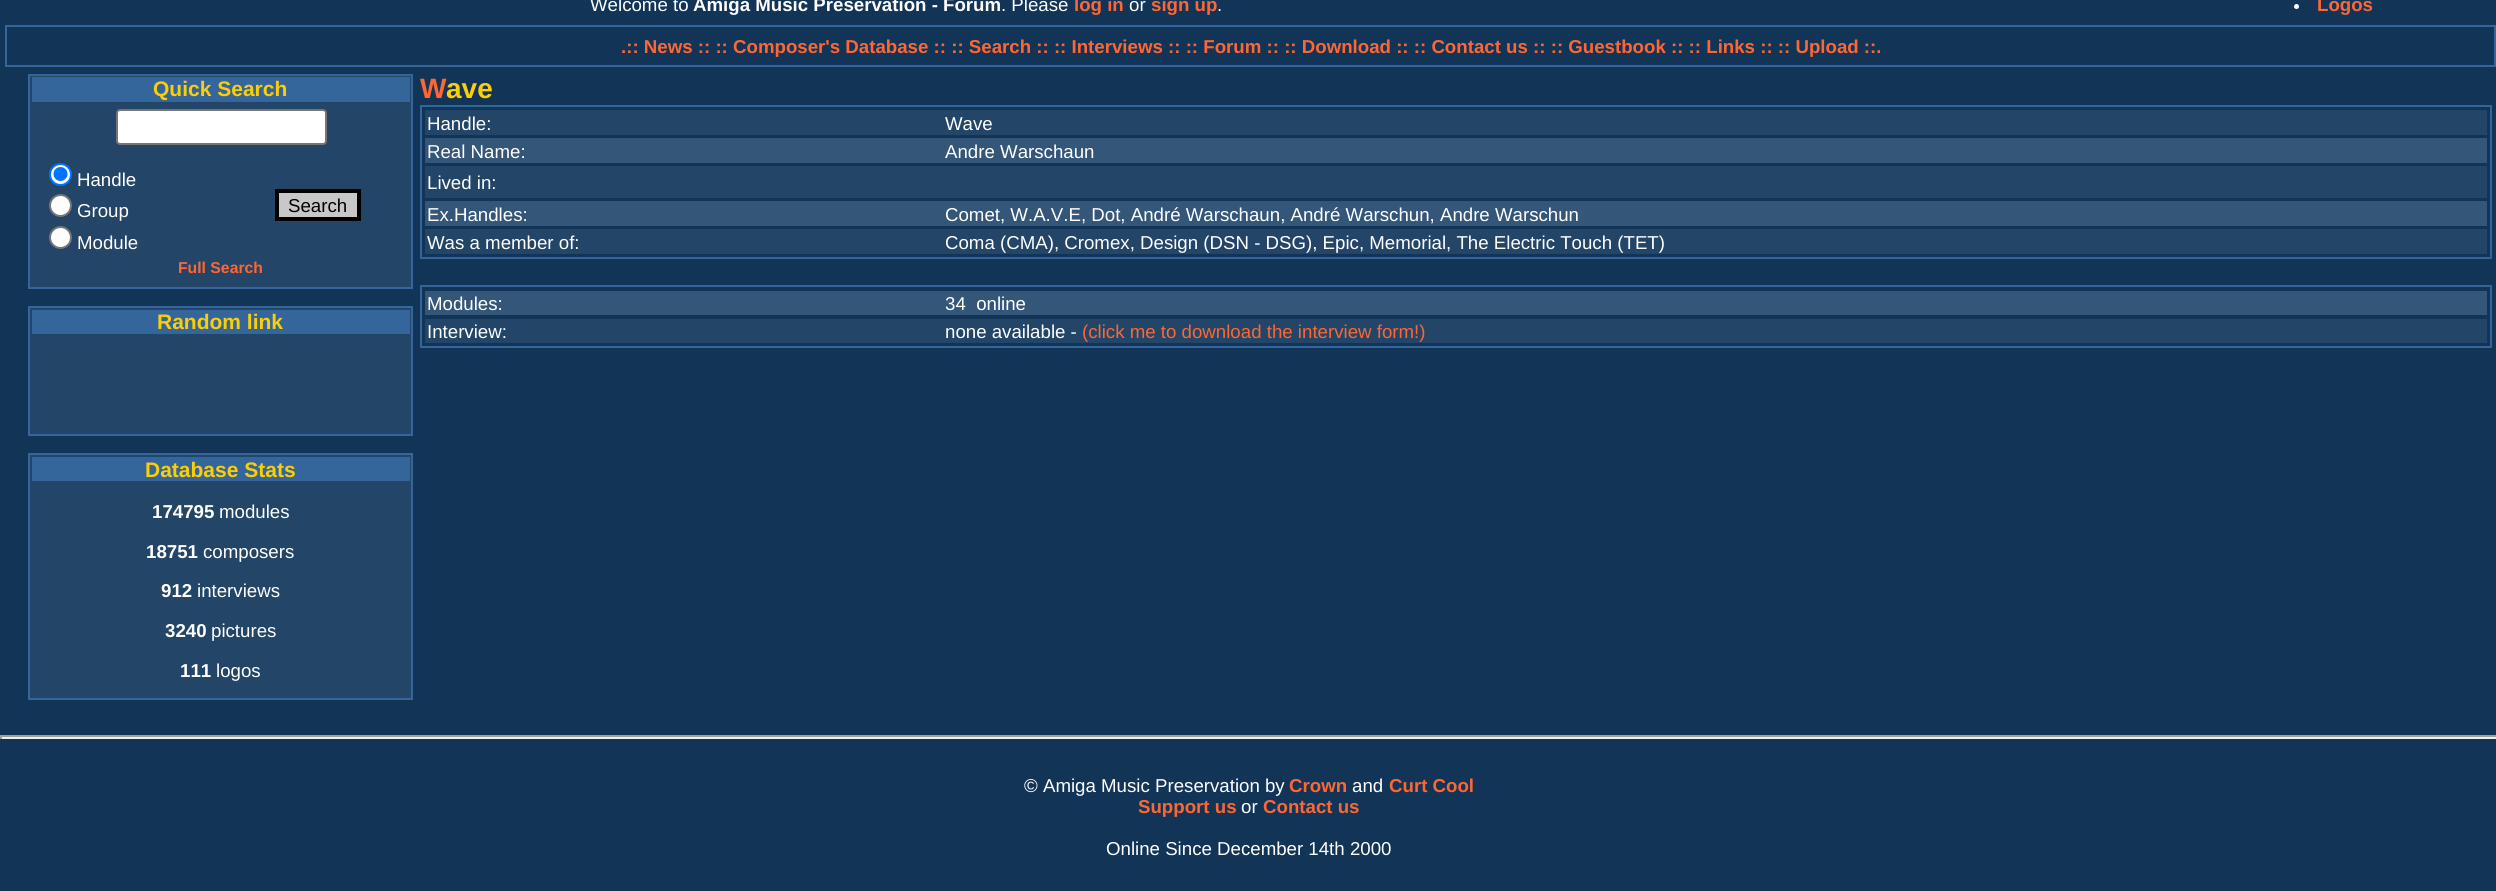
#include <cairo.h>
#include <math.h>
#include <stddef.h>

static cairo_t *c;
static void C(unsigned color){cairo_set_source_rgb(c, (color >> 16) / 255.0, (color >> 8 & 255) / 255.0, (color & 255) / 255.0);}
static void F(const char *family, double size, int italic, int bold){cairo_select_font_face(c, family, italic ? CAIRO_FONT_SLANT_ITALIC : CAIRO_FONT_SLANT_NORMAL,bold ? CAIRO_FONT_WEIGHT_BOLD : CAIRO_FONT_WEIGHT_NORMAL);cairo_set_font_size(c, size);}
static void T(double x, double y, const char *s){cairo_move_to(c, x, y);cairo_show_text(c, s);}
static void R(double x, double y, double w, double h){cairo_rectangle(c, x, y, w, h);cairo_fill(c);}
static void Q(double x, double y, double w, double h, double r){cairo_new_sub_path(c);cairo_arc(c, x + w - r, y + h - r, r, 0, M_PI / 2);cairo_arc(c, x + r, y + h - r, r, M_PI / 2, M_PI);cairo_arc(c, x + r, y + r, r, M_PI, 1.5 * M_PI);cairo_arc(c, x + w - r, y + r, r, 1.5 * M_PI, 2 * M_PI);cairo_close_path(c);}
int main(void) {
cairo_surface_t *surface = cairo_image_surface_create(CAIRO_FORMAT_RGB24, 2496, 891);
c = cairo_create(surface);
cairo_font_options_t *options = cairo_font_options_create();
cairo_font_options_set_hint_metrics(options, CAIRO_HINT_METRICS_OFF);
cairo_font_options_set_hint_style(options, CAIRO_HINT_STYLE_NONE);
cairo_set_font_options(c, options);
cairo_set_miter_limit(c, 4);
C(0x123456);
cairo_paint(c);
F("Liberation Sans",18.67,0,0);
C(0xffffff);
T(590,11,"Welcome to");
F("Liberation Sans",18.67,0,1);
T(693,11,"Amiga Music Preservation - Forum");
F("Liberation Sans",18.67,0,0);
T(1001,11,". Please");
F("Liberation Sans",18.67,0,1);
C(0xff6633);
T(1074,11,"log in");
F("Liberation Sans",18.67,0,0);
C(0xffffff);
T(1129,11,"or");
F("Liberation Sans",18.67,0,1);
C(0xff6633);
T(1151,11,"sign up");
F("Liberation Sans",18.67,0,0);
C(0xffffff);
T(1217,11,".");
cairo_new_path(c);
cairo_arc(c,2296.5,6.5,2.5,0,2 * M_PI);
cairo_fill(c);
F("Liberation Sans",18.67,0,1);
C(0xff6633);
T(2317,11,"Logos");
cairo_rectangle(c,6,26,2489,40);
C(0x34669c);
cairo_stroke(c);
C(0xff6633);
T(621,53,".:: News :: :: Composer's Database :: :: Search :: :: Interviews :: :: Forum :: :: Download :: :: Contact us :: :: Guestbook :: :: Links :: :: Upload ::.");
C(0x234567);
cairo_rectangle(c,29,75,383,213);
cairo_fill_preserve(c);
C(0x34669c);
cairo_stroke(c);
R(32,77,378,25);
F("Liberation Sans",21,0,1);
C(0xfcce04);
T(153,96,"Quick Search");
C(0xffffff);
Q(117,110,209,34,3);
cairo_fill_preserve(c);
C(0x767676);
cairo_stroke(c);
C(0xffffff);
cairo_arc(c,60.5,174.5,10.5,0,2 * M_PI);
cairo_fill_preserve(c);
C(0x0075ff);
cairo_stroke(c);
cairo_arc(c,60.5,174,7,0,2 * M_PI);
cairo_fill(c);
F("Liberation Sans",18.67,0,0);
C(0xffffff);
T(77,186,"Handle");
cairo_new_path(c);
cairo_arc(c,60.5,205.5,10.5,0,2 * M_PI);
cairo_fill_preserve(c);
C(0x767676);
cairo_stroke(c);
C(0xffffff);
T(77,217,"Group");
cairo_new_path(c);
cairo_arc(c,60.5,237.5,10.5,0,2 * M_PI);
cairo_fill_preserve(c);
C(0x767676);
cairo_stroke(c);
C(0xffffff);
T(77,249,"Module");
C(0xc8c8c8);
cairo_rectangle(c,277,191,82,28);
cairo_fill_preserve(c);
C(0x000000);
cairo_set_line_width(c,4);
cairo_stroke(c);
T(288,212,"Search");
F("Liberation Sans",15.75,0,1);
C(0xff6633);
T(178,273,"Full Search");
C(0x234567);
cairo_rectangle(c,29,307,383,128);
cairo_fill_preserve(c);
C(0x34669c);
cairo_set_line_width(c,2);
cairo_stroke(c);
R(32,310,378,24);
F("Liberation Sans",21,0,1);
C(0xfcce04);
T(157,329,"Random link");
C(0x234567);
cairo_rectangle(c,29,454,383,245);
cairo_fill_preserve(c);
C(0x34669c);
cairo_stroke(c);
R(32,457,378,24);
C(0xfcce04);
T(145,477,"Database Stats");
F("Liberation Sans",18.67,0,1);
C(0xffffff);
T(152,518,"174795");
F("Liberation Sans",18.67,0,0);
T(219,518,"modules");
F("Liberation Sans",18.67,0,1);
T(146,558,"18751");
F("Liberation Sans",18.67,0,0);
T(203,558,"composers");
F("Liberation Sans",18.67,0,1);
T(161,597,"912");
F("Liberation Sans",18.67,0,0);
T(197,597,"interviews");
F("Liberation Sans",18.67,0,1);
T(165,637,"3240");
F("Liberation Sans",18.67,0,0);
T(211,637,"pictures");
F("Liberation Sans",18.67,0,1);
T(180,677,"111");
F("Liberation Sans",18.67,0,0);
T(216,677,"logos");
F("Liberation Sans",28,0,1);
C(0xff6633);
T(420,98,"W");
C(0xfcce04);
T(446,98,"ave");
cairo_rectangle(c,421,106,2070,152);
C(0x34669c);
cairo_stroke(c);
C(0x234567);
R(425,110,2062,25);
F("Liberation Sans",18.67,0,0);
C(0xffffff);
T(427,130,"Handle:");
T(945,130,"Wave");
C(0x345678);
R(425,138,2062,25);
C(0xffffff);
T(427,158,"Real Name:");
T(945,158,"Andre Warschaun");
C(0x234567);
R(425,166,2062,32);
C(0xffffff);
T(427,189,"Lived in:");
C(0x345678);
R(425,201,2062,25);
C(0xffffff);
T(427,221,"Ex.Handles:");
T(945,221,"Comet, W.A.V.E, Dot, André Warschaun, André Warschun, Andre Warschun");
C(0x234567);
R(425,229,2062,25);
C(0xffffff);
T(427,249,"Was a member of:");
T(945,249,"Coma (CMA), Cromex, Design (DSN - DSG), Epic, Memorial, The Electric Touch (TET)");
cairo_rectangle(c,421,286,2070,61);
C(0x34669c);
cairo_stroke(c);
C(0x345678);
R(425,291,2062,24);
C(0xffffff);
T(427,310,"Modules:");
T(945,310,"34  online");
C(0x234567);
R(425,319,2062,24);
C(0xffffff);
T(427,338,"Interview:");
T(945,338,"none available -");
C(0xff6633);
T(1082,338,"(click me to download the interview form!)");
C(0x9f9f9f);
R(0,735,2496,2);
C(0xeeeeee);
R(0,737,2496,2);
C(0x9f9f9f);
R(0,735,2,4);
C(0xffffff);
T(1024,792,"© Amiga Music Preservation by");
F("Liberation Sans",18.67,0,1);
C(0xff6633);
T(1289,792,"Crown");
F("Liberation Sans",18.67,0,0);
C(0xffffff);
T(1352,792,"and");
F("Liberation Sans",18.67,0,1);
C(0xff6633);
T(1389,792,"Curt Cool");
T(1138,813,"Support us");
F("Liberation Sans",18.67,0,0);
C(0xffffff);
T(1241,813,"or");
F("Liberation Sans",18.67,0,1);
C(0xff6633);
T(1263,813,"Contact us");
F("Liberation Sans",18.67,0,0);
C(0xffffff);
T(1106,855,"Online Since December 14th 2000");
cairo_surface_write_to_png(surface, "o.png");
cairo_font_options_destroy(options);
cairo_destroy(c);
cairo_surface_destroy(surface);
return 0;
}
